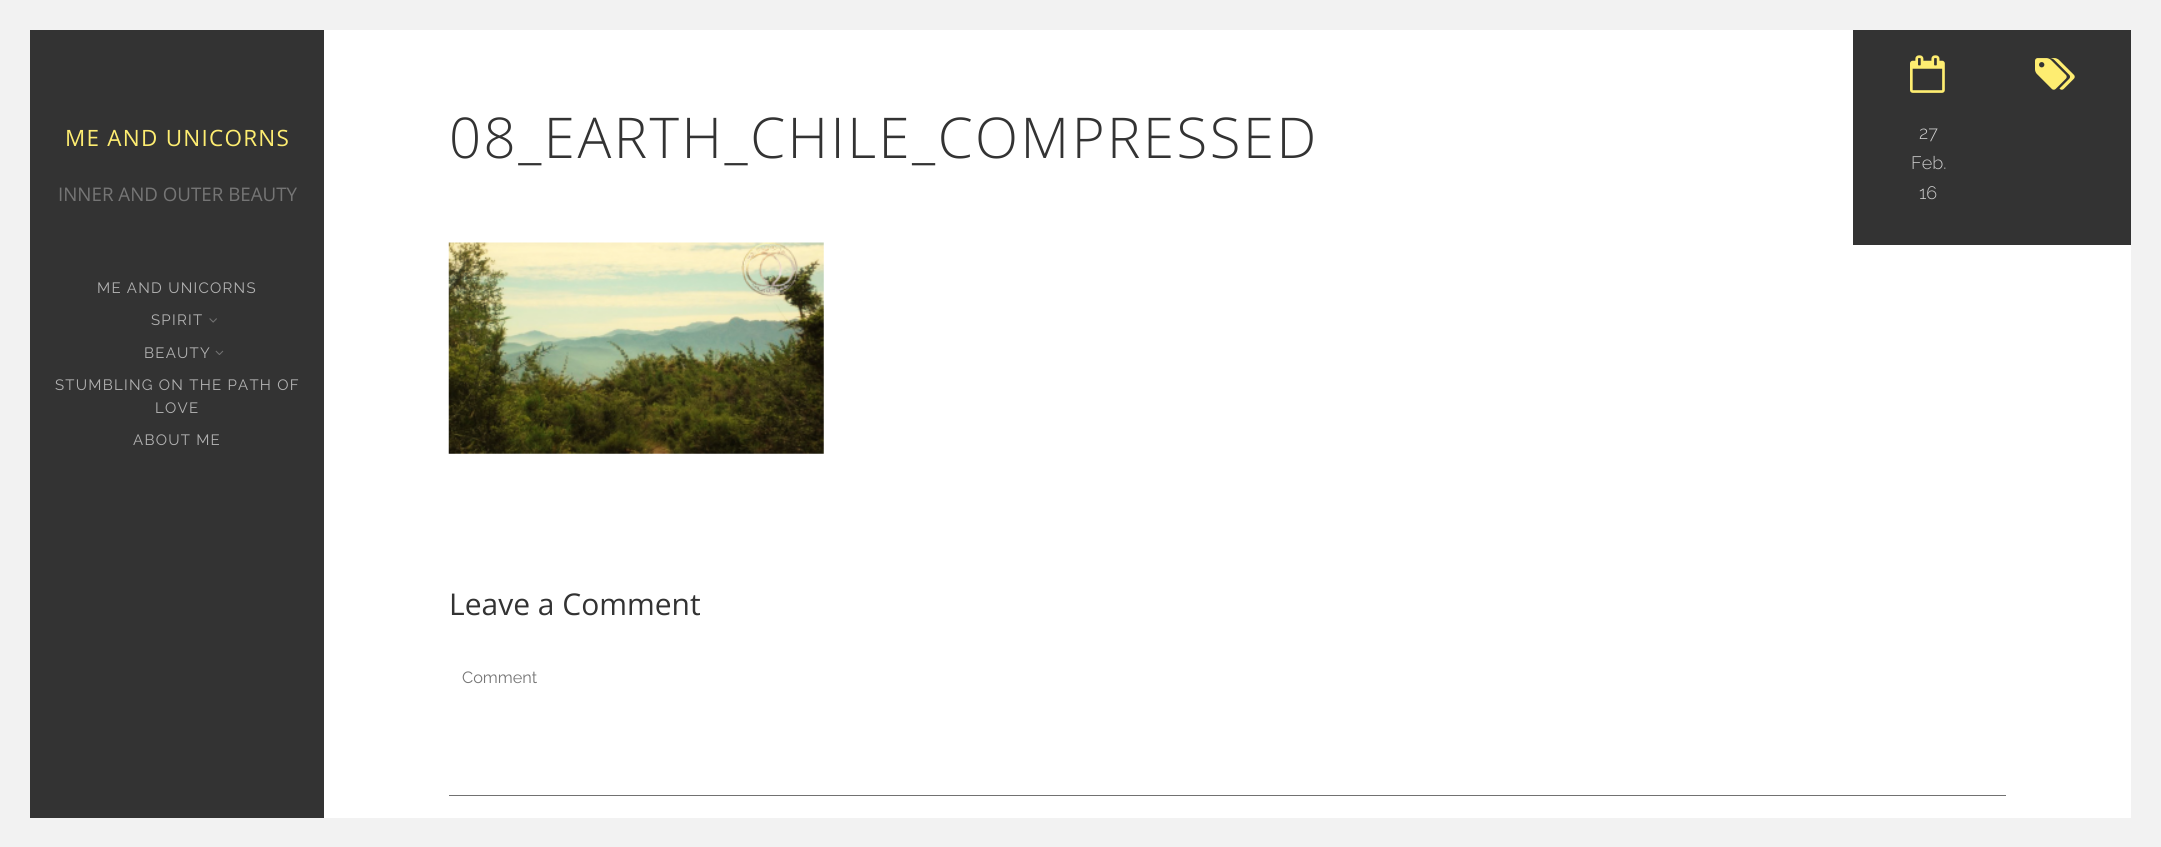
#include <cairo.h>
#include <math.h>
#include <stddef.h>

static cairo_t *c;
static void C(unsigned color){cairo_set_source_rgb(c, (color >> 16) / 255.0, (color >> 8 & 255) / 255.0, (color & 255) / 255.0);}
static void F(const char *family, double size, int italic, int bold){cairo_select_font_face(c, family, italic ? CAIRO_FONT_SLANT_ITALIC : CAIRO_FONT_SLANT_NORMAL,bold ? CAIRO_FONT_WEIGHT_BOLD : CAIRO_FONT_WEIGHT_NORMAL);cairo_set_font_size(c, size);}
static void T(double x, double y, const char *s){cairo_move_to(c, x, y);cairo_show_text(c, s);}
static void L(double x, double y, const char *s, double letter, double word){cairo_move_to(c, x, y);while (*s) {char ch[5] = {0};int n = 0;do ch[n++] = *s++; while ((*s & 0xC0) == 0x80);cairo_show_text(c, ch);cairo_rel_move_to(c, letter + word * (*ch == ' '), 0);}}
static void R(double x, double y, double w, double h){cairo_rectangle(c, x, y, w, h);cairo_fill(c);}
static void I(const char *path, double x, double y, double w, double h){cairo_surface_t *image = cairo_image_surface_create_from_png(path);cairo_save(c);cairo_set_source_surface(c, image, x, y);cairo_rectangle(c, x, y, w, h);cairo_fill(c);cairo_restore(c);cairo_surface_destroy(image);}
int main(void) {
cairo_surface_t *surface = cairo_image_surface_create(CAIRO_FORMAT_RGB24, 2161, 847);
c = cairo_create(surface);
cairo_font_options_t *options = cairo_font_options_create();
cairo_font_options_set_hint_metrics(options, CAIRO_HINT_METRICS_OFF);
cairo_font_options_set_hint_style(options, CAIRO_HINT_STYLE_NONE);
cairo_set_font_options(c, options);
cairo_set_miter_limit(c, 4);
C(0xffffff);
cairo_paint(c);
C(0xf2f2f2);
R(0,0,30,847);
R(30,0,2131,30);
C(0x333333);
R(30,30,294,788);
F("Open Sans",22.5,0,0);
C(0xfeed71);
L(65,146,"ME AND UNICORNS",1.25,0);
F("Open Sans",18.75,0,0);
C(0x757575);
T(58,201,"INNER AND OUTER BEAUTY");
F("Raleway",15,0,0);
C(0xb1b1b1);
L(97,293,"ME AND UNICORNS",1.25,0);
L(151,325,"SPIRIT",1.25,0);
I("1.png",209,318,8,5);
L(144,358,"BEAUTY",1.25,0);
I("2.png",215,350,9,5);
L(55,390,"STUMBLING ON THE PATH OF",1.25,0);
L(155,413,"LOVE",1.25,0);
L(133,445,"ABOUT ME",1.25,0);
F("Open Sans Light",56.25,0,0);
C(0x333333);
L(449,158,"08_EARTH_CHILE_COMPRESSED",2.5,0);
R(1853,30,278,215);
I("3.png",2035,58,40,32);
I("4.png",1910,55,35,38);
F("Raleway Light",18,0,0);
C(0xcccccc);
T(1919,139,"27");
T(1911,169,"Feb.");
T(1919,199,"16");
I("5.png",448,242,376,212);
F("Open Sans",30,0,0);
C(0x333333);
T(449,615,"Leave a Comment");
C(0x717171);
R(449,795,1557,1);
F("Raleway",16.25,0,0);
C(0x757575);
T(462,683,"Comment");
C(0xf2f2f2);
R(2131,30,30,788);
R(30,818,2131,29);
cairo_surface_write_to_png(surface, "o.png");
cairo_font_options_destroy(options);
cairo_destroy(c);
cairo_surface_destroy(surface);
return 0;
}
